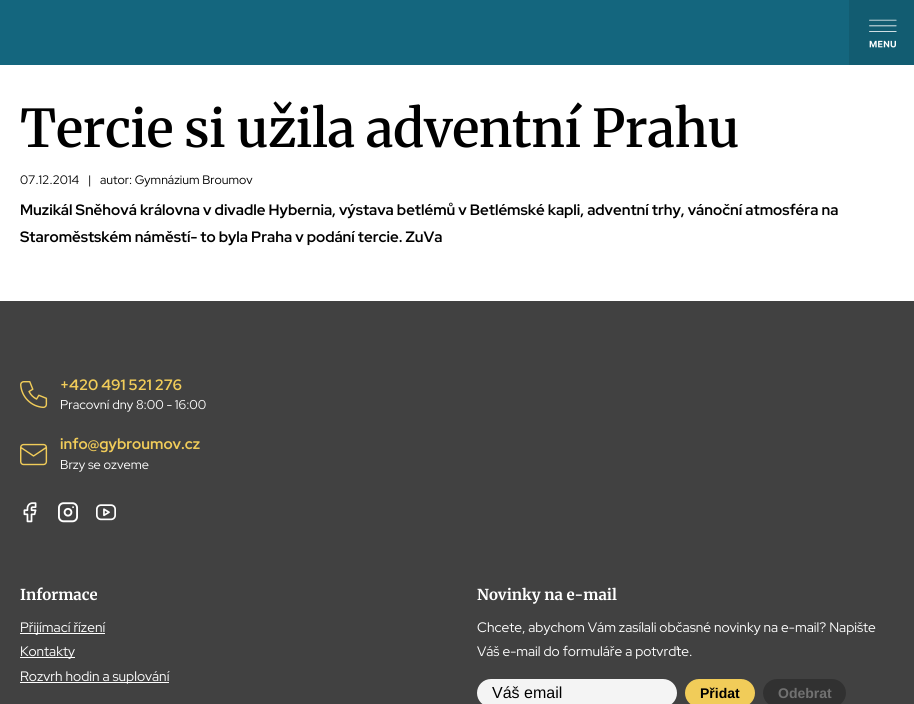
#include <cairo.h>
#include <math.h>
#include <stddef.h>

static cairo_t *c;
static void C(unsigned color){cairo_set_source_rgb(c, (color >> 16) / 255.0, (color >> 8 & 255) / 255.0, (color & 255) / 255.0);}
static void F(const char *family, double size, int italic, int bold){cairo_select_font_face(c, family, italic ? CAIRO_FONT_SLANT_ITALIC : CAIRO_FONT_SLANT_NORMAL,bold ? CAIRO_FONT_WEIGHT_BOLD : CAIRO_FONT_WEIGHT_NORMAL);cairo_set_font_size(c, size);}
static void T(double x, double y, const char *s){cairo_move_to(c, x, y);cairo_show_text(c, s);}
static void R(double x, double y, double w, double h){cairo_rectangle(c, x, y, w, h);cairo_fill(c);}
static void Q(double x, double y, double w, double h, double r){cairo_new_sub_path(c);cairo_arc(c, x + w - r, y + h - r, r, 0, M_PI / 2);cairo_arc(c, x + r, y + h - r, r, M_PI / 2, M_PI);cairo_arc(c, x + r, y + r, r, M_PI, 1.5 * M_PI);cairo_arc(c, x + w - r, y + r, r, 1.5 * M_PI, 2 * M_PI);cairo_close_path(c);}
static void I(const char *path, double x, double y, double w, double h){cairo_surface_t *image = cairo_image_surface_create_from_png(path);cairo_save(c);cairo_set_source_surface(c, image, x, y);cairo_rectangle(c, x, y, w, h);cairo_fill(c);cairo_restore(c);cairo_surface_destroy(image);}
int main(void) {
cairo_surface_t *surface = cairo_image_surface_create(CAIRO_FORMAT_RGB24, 914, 704);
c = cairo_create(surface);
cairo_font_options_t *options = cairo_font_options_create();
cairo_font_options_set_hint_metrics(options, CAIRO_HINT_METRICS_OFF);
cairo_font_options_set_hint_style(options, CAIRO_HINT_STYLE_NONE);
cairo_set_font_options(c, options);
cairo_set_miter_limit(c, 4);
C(0xffffff);
cairo_paint(c);
C(0x14667e);
R(0,0,849,65);
C(0x125c71);
R(849,0,65,65);
I("1.png",869,19,28,29);
F("Merriweather SemiBold",52,0,0);
C(0x000000);
T(20,147,"Tercie si u");
F("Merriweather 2 SemiBold",52,0,0);
T(268,147,"ž");
F("Merriweather SemiBold",52,0,0);
T(296,147,"ila adventní Prahu");
F("Red Hat Display",12.25,0,0);
T(20,184,"07.12.2014");
T(88,184,"|");
T(100,184,"autor: Gymnázium Broumov");
F("Red Hat Display",15.05,0,1);
T(20,215,"Muzikál Sněhová královna v divadle Hybernia, výstava betlémů v Betlémské kapli, adventní trhy, vánoční atmosféra na");
T(20,242,"Staroměstském náměstí- to byla Praha v podání tercie. ZuVa");
C(0x414141);
R(0,301,914,403);
I("2.png",20,381,28,28);
C(0xf1cc59);
T(60,390,"+420 491 521 276");
F("Red Hat Display",12.75,0,0);
C(0xffffff);
T(60,409,"Pracovní dny 8:00 - 16:00");
I("3.png",20,443,28,23);
F("Red Hat Display",15.05,0,1);
C(0xf1cc59);
T(60,449,"info@gybroumov.cz");
F("Red Hat Display",12.75,0,0);
C(0xffffff);
T(60,469,"Brzy se ozveme");
I("4.png",23,502,14,21);
I("5.png",58,502,20,21);
I("6.png",96,504,20,17);
F("Merriweather",15.05,0,1);
T(20,600,"Informace");
R(20,633,85,1);
F("Red Hat Display",13.7,0,0);
T(20,632,"Přijímací řízení");
R(20,657,55,1);
T(20,656,"Kontakty");
R(20,682,149,1);
T(20,681,"Rozvrh hodin a suplování");
F("Merriweather",15.05,0,1);
T(477,600,"Novinky na e-mail");
F("Red Hat Display",13.7,0,0);
T(477,632,"Chcete, abychom Vám zasílali občasné novinky na e-mail? Napište");
T(477,656,"Váš e-mail do formuláře a potvrďte.");
C(0xf4f4f4);
Q(477,679,200,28,14);
cairo_fill(c);
F("Liberation Sans",16,0,0);
C(0x000000);
T(492,698,"Váš email");
C(0xf1cc59);
Q(685,679,70,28,14);
cairo_fill(c);
F("Liberation Sans",14,0,1);
C(0x000000);
T(700,698,"Přidat");
C(0x313131);
Q(763,679,83,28,14);
cairo_fill(c);
C(0x717171);
T(778,698,"Odebrat");
cairo_surface_write_to_png(surface, "o.png");
cairo_font_options_destroy(options);
cairo_destroy(c);
cairo_surface_destroy(surface);
return 0;
}
